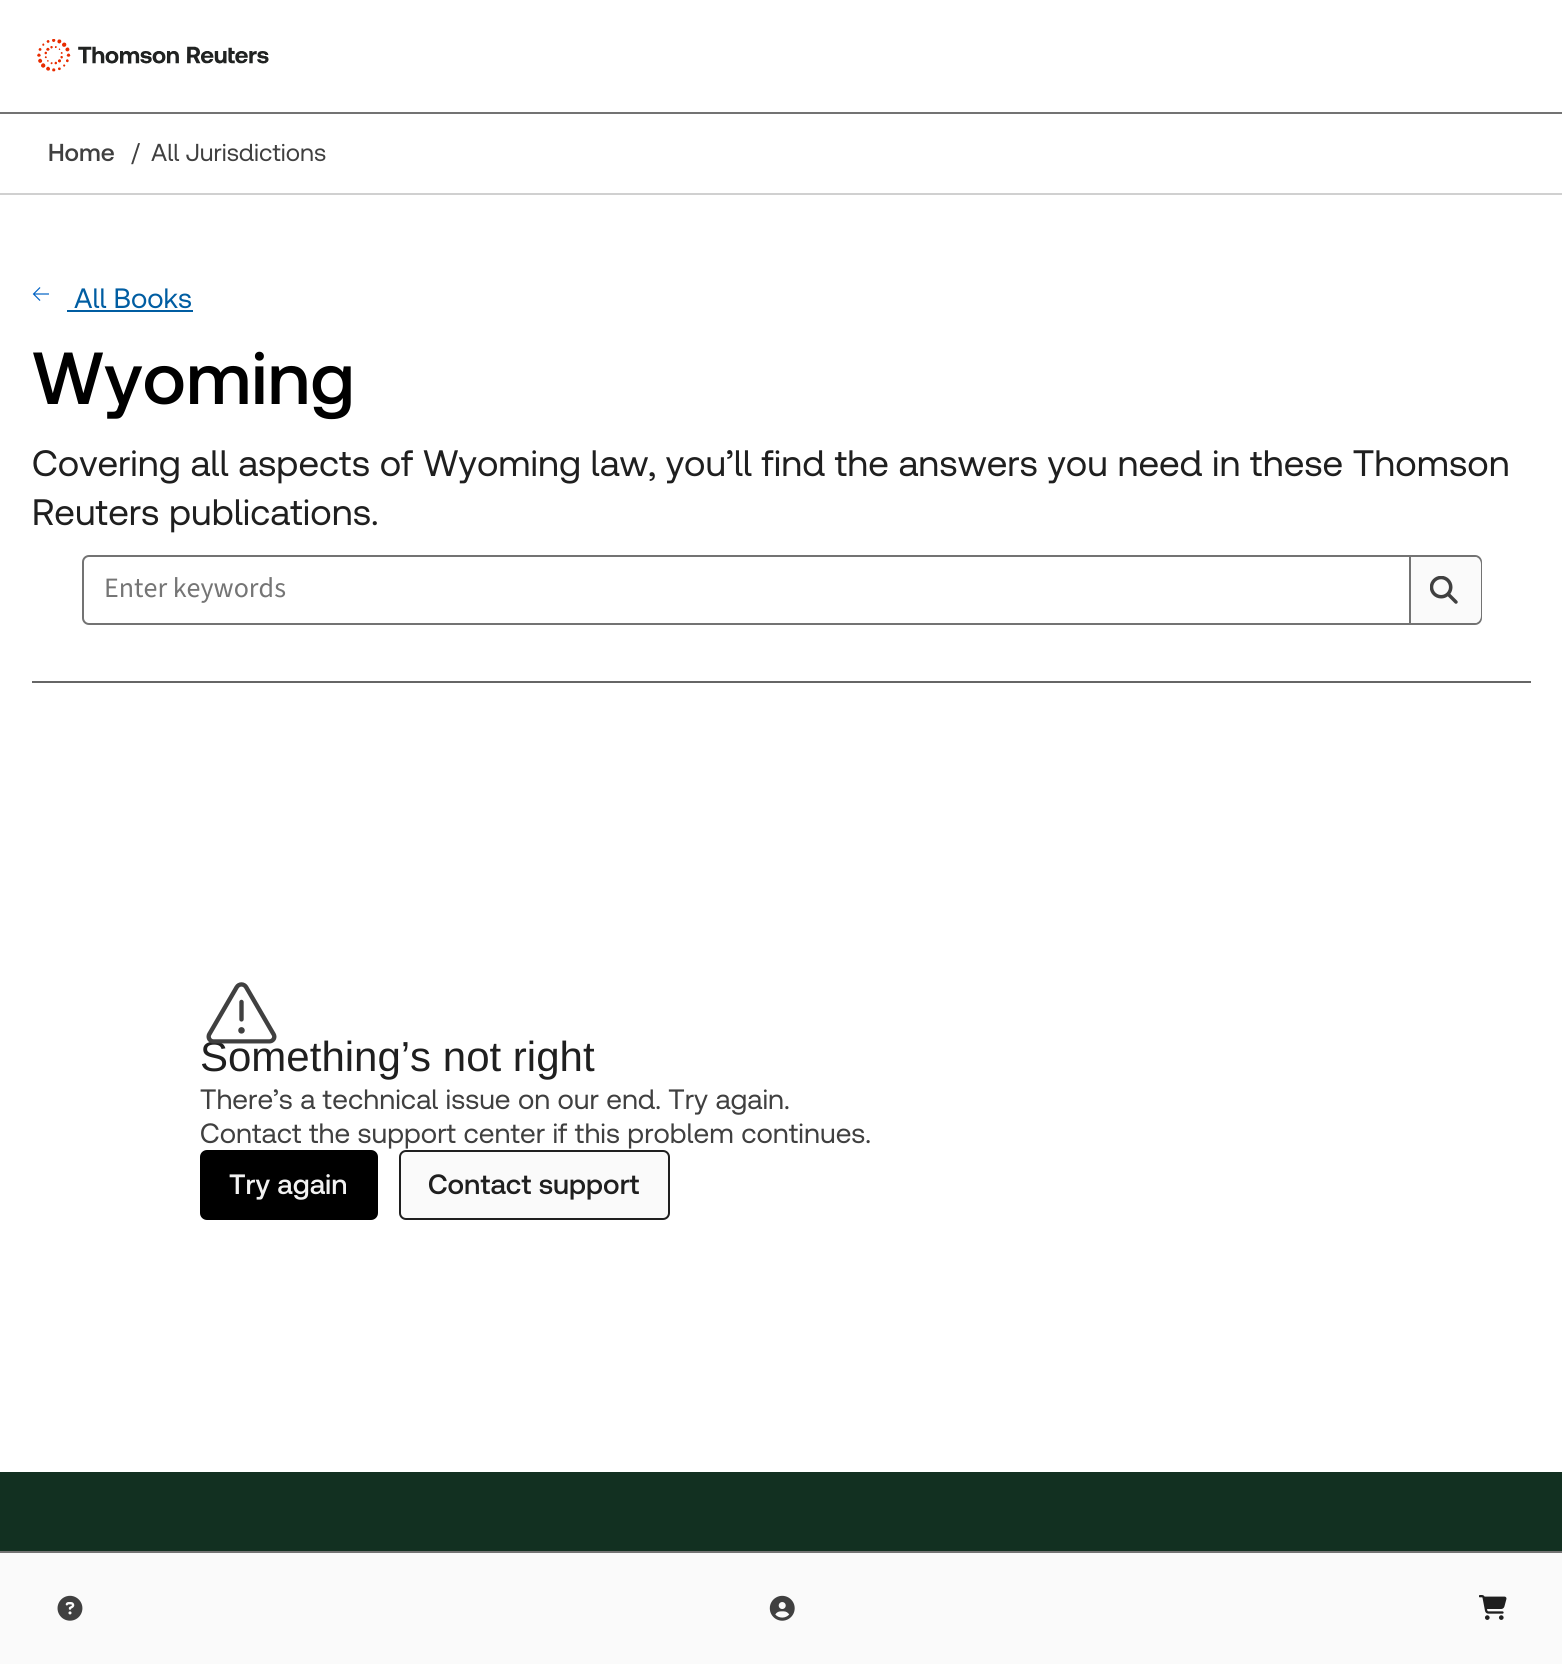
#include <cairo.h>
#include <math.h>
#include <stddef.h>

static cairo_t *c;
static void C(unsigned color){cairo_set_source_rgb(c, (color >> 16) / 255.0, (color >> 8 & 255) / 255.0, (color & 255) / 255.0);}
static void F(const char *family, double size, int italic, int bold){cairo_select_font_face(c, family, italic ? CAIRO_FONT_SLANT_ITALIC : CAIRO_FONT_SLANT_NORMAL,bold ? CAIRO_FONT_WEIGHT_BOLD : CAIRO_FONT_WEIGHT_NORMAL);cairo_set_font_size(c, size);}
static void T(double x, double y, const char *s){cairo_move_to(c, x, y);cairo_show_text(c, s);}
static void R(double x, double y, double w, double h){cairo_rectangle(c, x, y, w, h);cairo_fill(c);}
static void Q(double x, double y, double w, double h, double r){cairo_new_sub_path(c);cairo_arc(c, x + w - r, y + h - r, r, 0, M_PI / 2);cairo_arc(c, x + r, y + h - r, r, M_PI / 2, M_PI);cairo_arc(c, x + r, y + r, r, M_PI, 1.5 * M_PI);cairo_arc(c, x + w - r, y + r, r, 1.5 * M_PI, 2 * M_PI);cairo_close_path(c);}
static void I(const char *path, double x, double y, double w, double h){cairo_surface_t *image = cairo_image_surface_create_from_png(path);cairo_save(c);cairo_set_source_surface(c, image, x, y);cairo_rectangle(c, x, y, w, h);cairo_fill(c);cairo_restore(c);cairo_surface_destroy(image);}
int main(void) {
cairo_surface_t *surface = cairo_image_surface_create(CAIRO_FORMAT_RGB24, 1562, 1664);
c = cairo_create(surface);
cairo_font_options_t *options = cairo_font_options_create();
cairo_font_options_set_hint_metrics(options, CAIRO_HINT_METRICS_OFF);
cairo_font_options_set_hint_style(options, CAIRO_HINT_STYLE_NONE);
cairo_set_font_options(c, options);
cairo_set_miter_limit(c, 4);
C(0xffffff);
cairo_paint(c);
C(0x737373);
R(0,112,1562,2);
I("1.png",37,39,232,33);
C(0xfafafa);
R(0,1553,1562,111);
C(0x737373);
R(0,1551,1562,2);
I("2.png",57,1595,26,26);
I("3.png",769,1595,26,26);
I("4.png",1479,1595,28,25);
C(0xd0d0d0);
R(0,193,1562,2);
F("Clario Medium",24.5,0,0);
C(0x404040);
T(48,161,"Home");
F("Clario",24.5,0,0);
T(131,161,"/");
T(151,161,"All Jurisdictions");
I("5.png",32,287,17,14);
F("Clario",28,0,0);
C(0x005da2);
T(74,308,"All Books");
R(67,310,126,2);
F("Clario Medium",73.5,0,0);
C(0x000000);
T(32,404,"Wyoming");
F("Clario",36.75,0,0);
C(0x1f1f1f);
T(32,476,"Covering all aspects of Wyoming law, you’ll find the answers you need in these Thomson");
T(32,525,"Reuters publications.");
Q(83,556,1398,68,6);
C(0x737373);
cairo_stroke(c);
F("Source Sans 3",28,0,0);
C(0x757575);
T(104,597,"Enter keywords");
C(0xfafafa);
cairo_new_path(c);
cairo_move_to(c,1409,557);
cairo_line_to(c,1474,557);
cairo_curve_to(c,1478,557,1481,560,1481,564);
cairo_line_to(c,1481,616);
cairo_curve_to(c,1481,620,1478,623,1474,623);
cairo_line_to(c,1409,623);
cairo_close_path(c);
cairo_fill(c);
C(0x737373);
R(1409,557,2,66);
I("6.png",1430,576,28,28);
C(0x666666);
R(32,681,1499,2);
F("Liberation Sans",42,0,0);
C(0x1f1f1f);
T(200,1071,"Something’s not right");
I("7.png",206,982,71,62);
F("Clario",28,0,0);
C(0x404040);
T(200,1109,"There’s a technical issue on our end. Try again.");
T(200,1143,"Contact the support center if this problem continues.");
C(0x000000);
Q(201,1151,176,68,6);
cairo_fill_preserve(c);
cairo_stroke(c);
F("Clario Medium",28,0,0);
C(0xf2f2f2);
T(229,1194,"Try again");
C(0xfafafa);
Q(400,1151,269,68,6);
cairo_fill_preserve(c);
C(0x1f1f1f);
cairo_stroke(c);
T(428,1194,"Contact support");
C(0x123021);
R(0,1472,1562,79);
cairo_surface_write_to_png(surface, "o.png");
cairo_font_options_destroy(options);
cairo_destroy(c);
cairo_surface_destroy(surface);
return 0;
}
